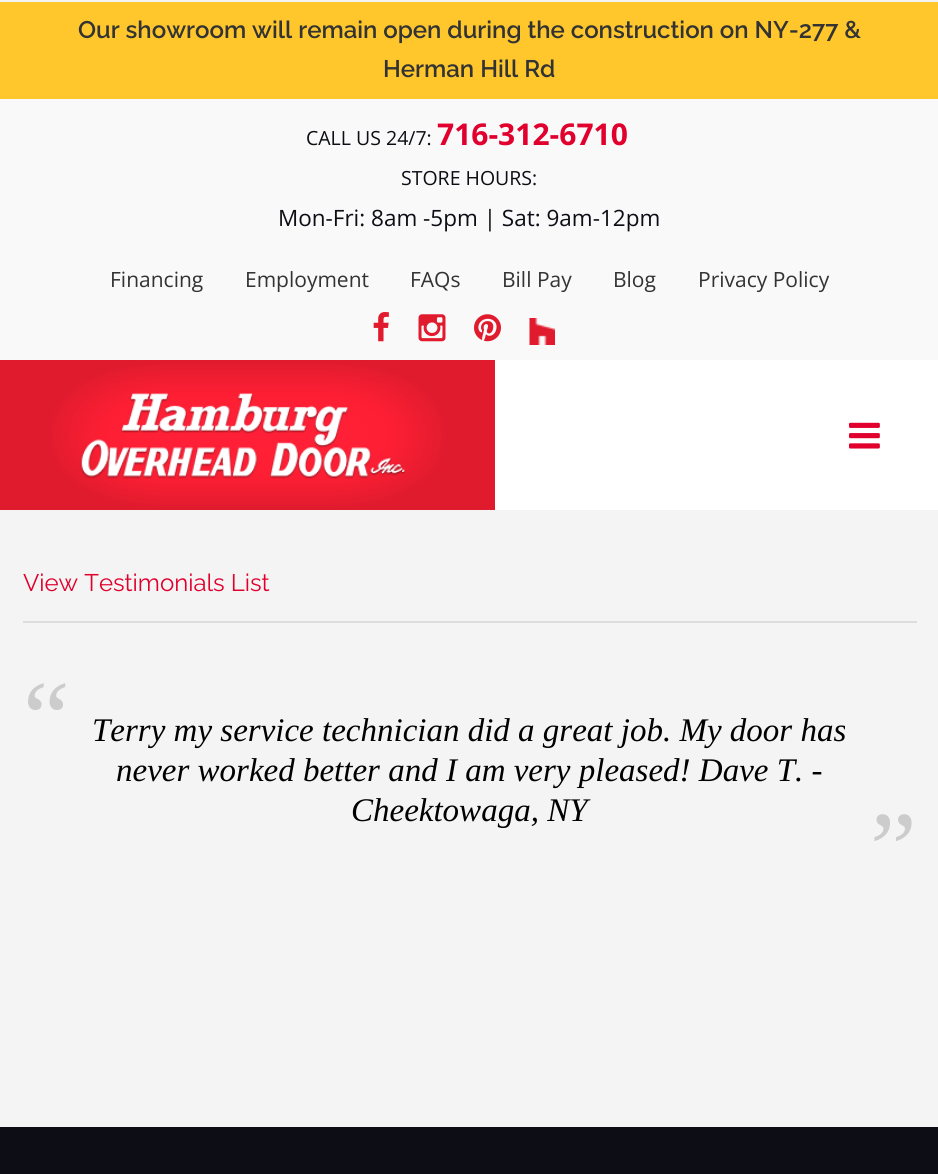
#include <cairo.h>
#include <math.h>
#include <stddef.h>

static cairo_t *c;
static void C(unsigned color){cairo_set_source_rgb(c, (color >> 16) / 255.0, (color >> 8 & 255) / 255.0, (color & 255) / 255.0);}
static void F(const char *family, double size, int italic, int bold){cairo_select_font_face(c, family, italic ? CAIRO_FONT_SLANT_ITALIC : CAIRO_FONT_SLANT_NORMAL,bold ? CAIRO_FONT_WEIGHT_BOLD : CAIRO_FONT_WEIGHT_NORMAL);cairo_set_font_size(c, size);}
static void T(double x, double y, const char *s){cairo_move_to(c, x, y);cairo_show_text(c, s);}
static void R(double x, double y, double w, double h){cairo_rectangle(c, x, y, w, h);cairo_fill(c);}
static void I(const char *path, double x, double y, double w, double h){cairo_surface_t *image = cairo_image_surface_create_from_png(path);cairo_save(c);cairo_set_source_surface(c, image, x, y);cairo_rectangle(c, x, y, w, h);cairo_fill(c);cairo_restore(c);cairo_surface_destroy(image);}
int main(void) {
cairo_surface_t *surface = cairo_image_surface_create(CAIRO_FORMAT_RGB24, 938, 1174);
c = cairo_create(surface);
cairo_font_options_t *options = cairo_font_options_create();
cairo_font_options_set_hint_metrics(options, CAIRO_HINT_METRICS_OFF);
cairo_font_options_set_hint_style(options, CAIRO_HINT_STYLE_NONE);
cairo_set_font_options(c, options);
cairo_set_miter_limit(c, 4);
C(0xf4f4f4);
cairo_paint(c);
C(0xffc72c);
R(0,2,938,97);
F("Raleway SemiBold",24,0,0);
C(0x333333);
T(78,38,"Our showroom will remain open during the construction on NY-277 &");
T(383,77,"Herman Hill Rd");
C(0xf9f9f9);
R(0,99,938,261);
F("Open Sans",19.5,0,0);
C(0x0d0e15);
T(306,145,"CALL US 24/7:");
F("Open Sans",30,0,1);
C(0xe1002d);
T(437,145,"716-312-6710");
F("Open Sans",19.5,0,0);
C(0x0d0e15);
T(401,185,"STORE HOURS:");
F("Open Sans",22.5,0,0);
T(278,226,"Mon-Fri: 8am -5pm | Sat: 9am-12pm");
F("Open Sans",21,0,0);
C(0x333333);
T(110,287,"Financing");
T(245,287,"Employment");
T(410,287,"FAQs");
T(502,287,"Bill Pay");
T(613,287,"Blog");
T(698,287,"Privacy Policy");
I("1.png",373,312,16,30);
I("2.png",418,314,28,28);
I("3.png",474,314,27,28);
I("4.png",529,318,26,27);
C(0xffffff);
R(495,360,443,150);
I("5.png",0,360,495,150);
I("6.png",849,422,31,27);
F("Raleway",24,0,0);
C(0xe1002d);
T(23,591,"View Testimonials List");
C(0xdddddd);
R(23,621,894,2);
F("Liberation Serif",105,0,0);
C(0xcccccc);
T(23,753,"“");
F("Liberation Serif",33,1,0);
C(0x000000);
T(92,741,"Terry my service technician did a great job. My door has");
T(116,781,"never worked better and I am very pleased! Dave T. -");
T(351,821,"Cheektowaga, NY");
F("Liberation Serif",105,0,0);
C(0xcccccc);
T(870,884,"”");
C(0x0d0e15);
R(0,1127,938,47);
cairo_surface_write_to_png(surface, "o.png");
cairo_font_options_destroy(options);
cairo_destroy(c);
cairo_surface_destroy(surface);
return 0;
}
